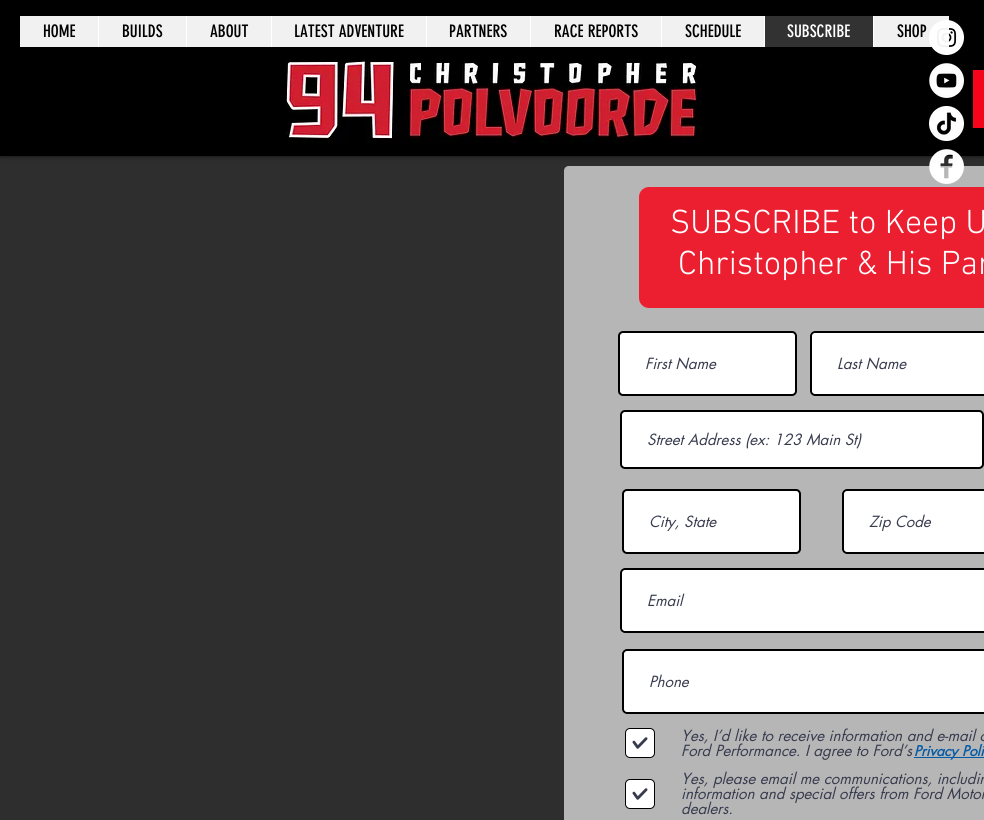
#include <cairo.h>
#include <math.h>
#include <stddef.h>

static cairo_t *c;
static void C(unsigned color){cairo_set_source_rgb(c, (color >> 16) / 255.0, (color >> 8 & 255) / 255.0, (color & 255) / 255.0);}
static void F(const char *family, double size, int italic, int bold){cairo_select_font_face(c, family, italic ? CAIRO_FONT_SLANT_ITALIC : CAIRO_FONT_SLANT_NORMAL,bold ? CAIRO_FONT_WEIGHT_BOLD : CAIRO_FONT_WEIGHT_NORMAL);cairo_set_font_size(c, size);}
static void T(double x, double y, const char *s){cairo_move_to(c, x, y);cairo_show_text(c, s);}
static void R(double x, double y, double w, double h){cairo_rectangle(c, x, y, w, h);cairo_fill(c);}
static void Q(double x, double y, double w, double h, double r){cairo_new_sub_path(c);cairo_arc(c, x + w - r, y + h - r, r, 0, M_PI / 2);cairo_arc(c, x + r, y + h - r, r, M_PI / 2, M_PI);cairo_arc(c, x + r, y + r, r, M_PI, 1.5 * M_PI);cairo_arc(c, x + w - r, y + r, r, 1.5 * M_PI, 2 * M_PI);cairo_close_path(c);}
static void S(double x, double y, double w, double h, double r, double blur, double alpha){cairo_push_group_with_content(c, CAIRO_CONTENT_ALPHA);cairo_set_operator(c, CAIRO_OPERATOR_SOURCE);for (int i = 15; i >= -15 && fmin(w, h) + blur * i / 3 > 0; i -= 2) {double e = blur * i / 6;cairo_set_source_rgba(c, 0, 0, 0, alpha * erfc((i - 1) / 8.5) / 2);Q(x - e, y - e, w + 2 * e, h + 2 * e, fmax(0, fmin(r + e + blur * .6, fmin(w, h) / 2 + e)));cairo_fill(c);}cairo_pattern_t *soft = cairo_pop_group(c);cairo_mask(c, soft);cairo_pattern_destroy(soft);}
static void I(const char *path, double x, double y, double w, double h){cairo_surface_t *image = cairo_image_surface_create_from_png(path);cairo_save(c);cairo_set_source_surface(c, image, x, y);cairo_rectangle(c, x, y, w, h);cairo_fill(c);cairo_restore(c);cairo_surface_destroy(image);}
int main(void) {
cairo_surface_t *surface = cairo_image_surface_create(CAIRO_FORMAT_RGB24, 984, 820);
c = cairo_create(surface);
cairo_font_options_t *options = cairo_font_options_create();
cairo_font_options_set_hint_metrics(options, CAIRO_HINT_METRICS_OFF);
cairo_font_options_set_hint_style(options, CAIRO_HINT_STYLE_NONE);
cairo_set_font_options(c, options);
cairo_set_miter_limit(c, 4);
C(0x2f2e2e);
cairo_paint(c);
C(0x000000);
S(0,0,984,156,0,2.5,.7);
C(0x000000);
R(0,0,984,156);
C(0xf1f1f1);
R(20,16,929,31);
F("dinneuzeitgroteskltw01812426",17,0,0);
C(0x000000);
T(43,37,"HOME");
C(0xffffff);
R(98,16,1,31);
C(0x000000);
T(122,37,"BUILDS");
C(0xffffff);
R(186,16,1,31);
C(0x000000);
T(210,37,"ABOUT");
C(0xffffff);
R(271,16,1,31);
C(0x000000);
T(294,37,"LATEST ADVENTURE");
C(0xffffff);
R(426,16,1,31);
C(0x000000);
T(449,37,"PARTNERS");
C(0xffffff);
R(530,16,1,31);
C(0x000000);
T(554,37,"RACE REPORTS");
C(0xffffff);
R(661,16,1,31);
C(0x000000);
T(685,37,"SCHEDULE");
C(0x323232);
R(765,16,108,31);
C(0xffffff);
R(764,16,1,31);
T(787,37,"SUBSCRIBE");
R(873,16,1,31);
C(0x000000);
T(897,37,"SHOP");
I("1.png",286,59,416,84);
C(0xf60419);
R(973,70,11,58);
I("2.png",929,20,35,35);
I("3.png",929,63,35,35);
I("4.png",929,106,35,35);
C(0xb6b6b6);
cairo_new_path(c);
cairo_move_to(c,569,166);
cairo_line_to(c,984,166);
cairo_line_to(c,984,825);
cairo_line_to(c,569,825);
cairo_curve_to(c,566,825,564,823,564,820);
cairo_line_to(c,564,171);
cairo_curve_to(c,564,168,566,166,569,166);
cairo_close_path(c);
cairo_fill(c);
I("5.png",929,149,35,35);
C(0xec1f31);
cairo_new_path(c);
cairo_move_to(c,649,187);
cairo_line_to(c,984,187);
cairo_line_to(c,984,308);
cairo_line_to(c,649,308);
cairo_curve_to(c,643.5,308,639,303.5,639,298);
cairo_line_to(c,639,197);
cairo_curve_to(c,639,191.5,643.5,187,649,187);
cairo_close_path(c);
cairo_fill(c);
F("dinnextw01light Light",34,0,0);
C(0xffffff);
T(670,233,"SUBSCRIBE to Keep U");
T(678,274,"Christopher & His Par");
Q(619,332,177,63,4);
cairo_fill_preserve(c);
C(0x000000);
cairo_stroke(c);
F("futura",15,1,0);
C(0x373b4d);
T(645,369,"First Name");
C(0xffffff);
cairo_new_path(c);
cairo_move_to(c,815,331);
cairo_line_to(c,984,331);
cairo_line_to(c,984,396);
cairo_line_to(c,815,396);
cairo_curve_to(c,812,396,810,394,810,391);
cairo_line_to(c,810,336);
cairo_curve_to(c,810,333,812,331,815,331);
cairo_close_path(c);
cairo_fill(c);
Q(811,332,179,63,4);
C(0x000000);
cairo_stroke(c);
C(0x373b4d);
T(837,369,"Last Name");
C(0xffffff);
Q(621,411,362,57,4);
cairo_fill_preserve(c);
C(0x000000);
cairo_stroke(c);
C(0x373b4d);
T(647,445,"Street Address (ex: 123 Main St)");
C(0xffffff);
Q(623,490,177,63,4);
cairo_fill_preserve(c);
C(0x000000);
cairo_stroke(c);
C(0x373b4d);
T(649,527,"City, State");
C(0xffffff);
cairo_new_path(c);
cairo_move_to(c,847,489);
cairo_line_to(c,984,489);
cairo_line_to(c,984,554);
cairo_line_to(c,847,554);
cairo_curve_to(c,844,554,842,552,842,549);
cairo_line_to(c,842,494);
cairo_curve_to(c,842,491,844,489,847,489);
cairo_close_path(c);
cairo_fill(c);
Q(843,490,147,63,4);
C(0x000000);
cairo_stroke(c);
C(0x373b4d);
T(869,527,"Zip Code");
C(0xffffff);
cairo_new_path(c);
cairo_move_to(c,625,568);
cairo_line_to(c,984,568);
cairo_line_to(c,984,633);
cairo_line_to(c,625,633);
cairo_curve_to(c,622,633,620,631,620,628);
cairo_line_to(c,620,573);
cairo_curve_to(c,620,570,622,568,625,568);
cairo_close_path(c);
cairo_fill(c);
Q(621,569,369,63,4);
C(0x000000);
cairo_stroke(c);
C(0x373b4d);
T(647,606,"Email");
C(0xffffff);
cairo_new_path(c);
cairo_move_to(c,627,649);
cairo_line_to(c,984,649);
cairo_line_to(c,984,714);
cairo_line_to(c,627,714);
cairo_curve_to(c,624,714,622,712,622,709);
cairo_line_to(c,622,654);
cairo_curve_to(c,622,651,624,649,627,649);
cairo_close_path(c);
cairo_fill(c);
Q(623,650,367,63,4);
C(0x000000);
cairo_stroke(c);
C(0x373b4d);
T(649,687,"Phone");
C(0xffffff);
Q(625.5,728.5,29,29,4.5);
cairo_fill_preserve(c);
C(0x000000);
cairo_set_line_width(c,1);
cairo_stroke(c);
C(0x373b4d);
T(681,741,"Yes, I’d like to receive information and e-mail c");
T(681,756,"Ford Performance. I agree to Ford’s");
I("6.png",632,737,16,12);
C(0x035aa6);
R(914,757,70,1);
F("futura",14,1,1);
T(914,756,"Privacy Poli");
C(0xffffff);
Q(625.5,779.5,29,29,4.5);
cairo_fill_preserve(c);
C(0x000000);
cairo_stroke(c);
F("futura",15,1,0);
C(0x373b4d);
T(681,784,"Yes, please email me communications, includin");
T(681,799,"information and special offers from Ford Motor");
T(681,814,"dealers.");
I("6.png",632,788,16,12);
cairo_surface_write_to_png(surface, "o.png");
cairo_font_options_destroy(options);
cairo_destroy(c);
cairo_surface_destroy(surface);
return 0;
}
